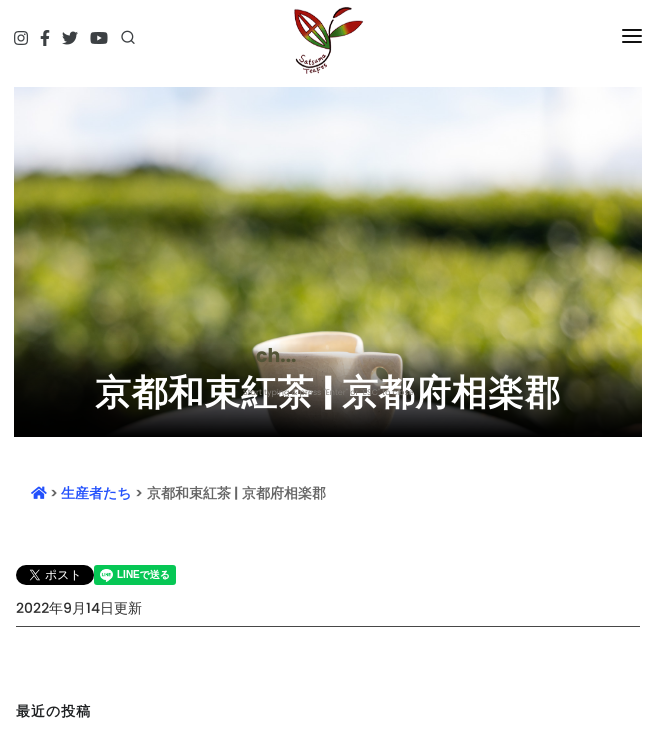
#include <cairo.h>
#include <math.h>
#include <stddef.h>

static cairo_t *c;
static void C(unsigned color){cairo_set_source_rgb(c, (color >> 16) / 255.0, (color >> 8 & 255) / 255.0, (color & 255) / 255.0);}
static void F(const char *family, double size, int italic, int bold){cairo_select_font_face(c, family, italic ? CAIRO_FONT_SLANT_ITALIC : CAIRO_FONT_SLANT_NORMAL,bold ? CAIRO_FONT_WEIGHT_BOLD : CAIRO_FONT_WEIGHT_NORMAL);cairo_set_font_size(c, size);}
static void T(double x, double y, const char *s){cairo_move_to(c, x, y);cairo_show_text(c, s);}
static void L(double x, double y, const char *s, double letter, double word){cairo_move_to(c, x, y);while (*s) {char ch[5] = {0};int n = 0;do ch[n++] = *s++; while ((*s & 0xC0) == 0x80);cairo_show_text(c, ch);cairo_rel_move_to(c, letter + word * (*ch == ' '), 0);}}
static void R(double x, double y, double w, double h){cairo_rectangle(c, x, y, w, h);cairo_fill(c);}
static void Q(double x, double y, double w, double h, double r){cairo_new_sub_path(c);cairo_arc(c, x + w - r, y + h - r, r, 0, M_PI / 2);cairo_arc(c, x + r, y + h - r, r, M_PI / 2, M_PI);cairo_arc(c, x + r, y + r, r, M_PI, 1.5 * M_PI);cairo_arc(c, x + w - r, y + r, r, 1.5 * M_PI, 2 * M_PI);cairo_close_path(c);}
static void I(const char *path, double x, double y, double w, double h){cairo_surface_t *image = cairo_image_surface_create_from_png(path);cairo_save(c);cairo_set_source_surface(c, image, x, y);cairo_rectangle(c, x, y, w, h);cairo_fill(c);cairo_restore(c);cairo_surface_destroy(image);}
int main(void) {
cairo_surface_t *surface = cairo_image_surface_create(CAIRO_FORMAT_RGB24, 656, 732);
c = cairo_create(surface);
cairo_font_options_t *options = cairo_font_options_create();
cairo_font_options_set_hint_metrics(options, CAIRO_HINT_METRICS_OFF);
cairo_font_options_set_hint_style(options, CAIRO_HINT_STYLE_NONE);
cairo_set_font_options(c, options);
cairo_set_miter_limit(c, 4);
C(0xffffff);
cairo_paint(c);
I("1.png",14,31,15,14);
I("2.png",40,30,10,16);
I("3.png",62,31,16,14);
I("4.png",90,32,18,12);
I("5.png",121,30,14,14);
I("6.png",294,6,70,68);
C(0x111111);
Q(622,35,20,2,1);
cairo_fill(c);
Q(622,29,20,2,1);
cairo_fill(c);
Q(622,41,20,2,1);
cairo_fill(c);
I("7.png",14,87,628,350);
F("Poppins",19,0,1);
C(0x535437);
T(256,362,"ch...");
F("WenQuanYi Zen Hei",36,0,1);
C(0xffffff);
L(95,405,"京都和束紅茶",.5,0);
F("Poppins",36,0,1);
L(323,405,"|",.5,0);
F("WenQuanYi Zen Hei",36,0,1);
L(342,405,"京都府相楽郡",.5,0);
F("Poppins",8,0,0);
C(0x7e7a74);
T(243,395,"Start typing & press \"Enter\" or \"ESC\" to close");
I("8.png",31,486,16,13);
F("Poppins SemiBold",14,0,0);
C(0x666666);
T(50,498,">");
F("WenQuanYi Zen Hei",14,0,1);
C(0x2250fc);
T(61,498,"生産者たち");
F("Poppins SemiBold",14,0,0);
C(0x666666);
T(135,498,">");
F("WenQuanYi Zen Hei",14,0,1);
T(147,498,"京都和束紅茶");
F("Poppins SemiBold",14,0,0);
T(234,498,"|");
F("WenQuanYi Zen Hei",14,0,1);
T(242,498,"京都府相楽郡");
I("9.png",16,565,78,20);
I("10.png",94,565,82,20);
F("Poppins Medium",14,0,0);
C(0x2e2e2e);
T(16,613,"2022");
F("WenQuanYi Zen Hei Medium",14,0,0);
T(49,613,"年");
F("Poppins Medium",14,0,0);
T(63,613,"9");
F("WenQuanYi Zen Hei Medium",14,0,0);
T(72,613,"月");
F("Poppins Medium",14,0,0);
T(86,613,"14");
F("WenQuanYi Zen Hei Medium",14,0,0);
T(100,613,"日更新");
C(0x474747);
R(16,626,624,1);
F("WenQuanYi Zen Hei",14,0,1);
C(0x1e2022);
L(16,716,"最近の投稿",1,0);
cairo_surface_write_to_png(surface, "o.png");
cairo_font_options_destroy(options);
cairo_destroy(c);
cairo_surface_destroy(surface);
return 0;
}
